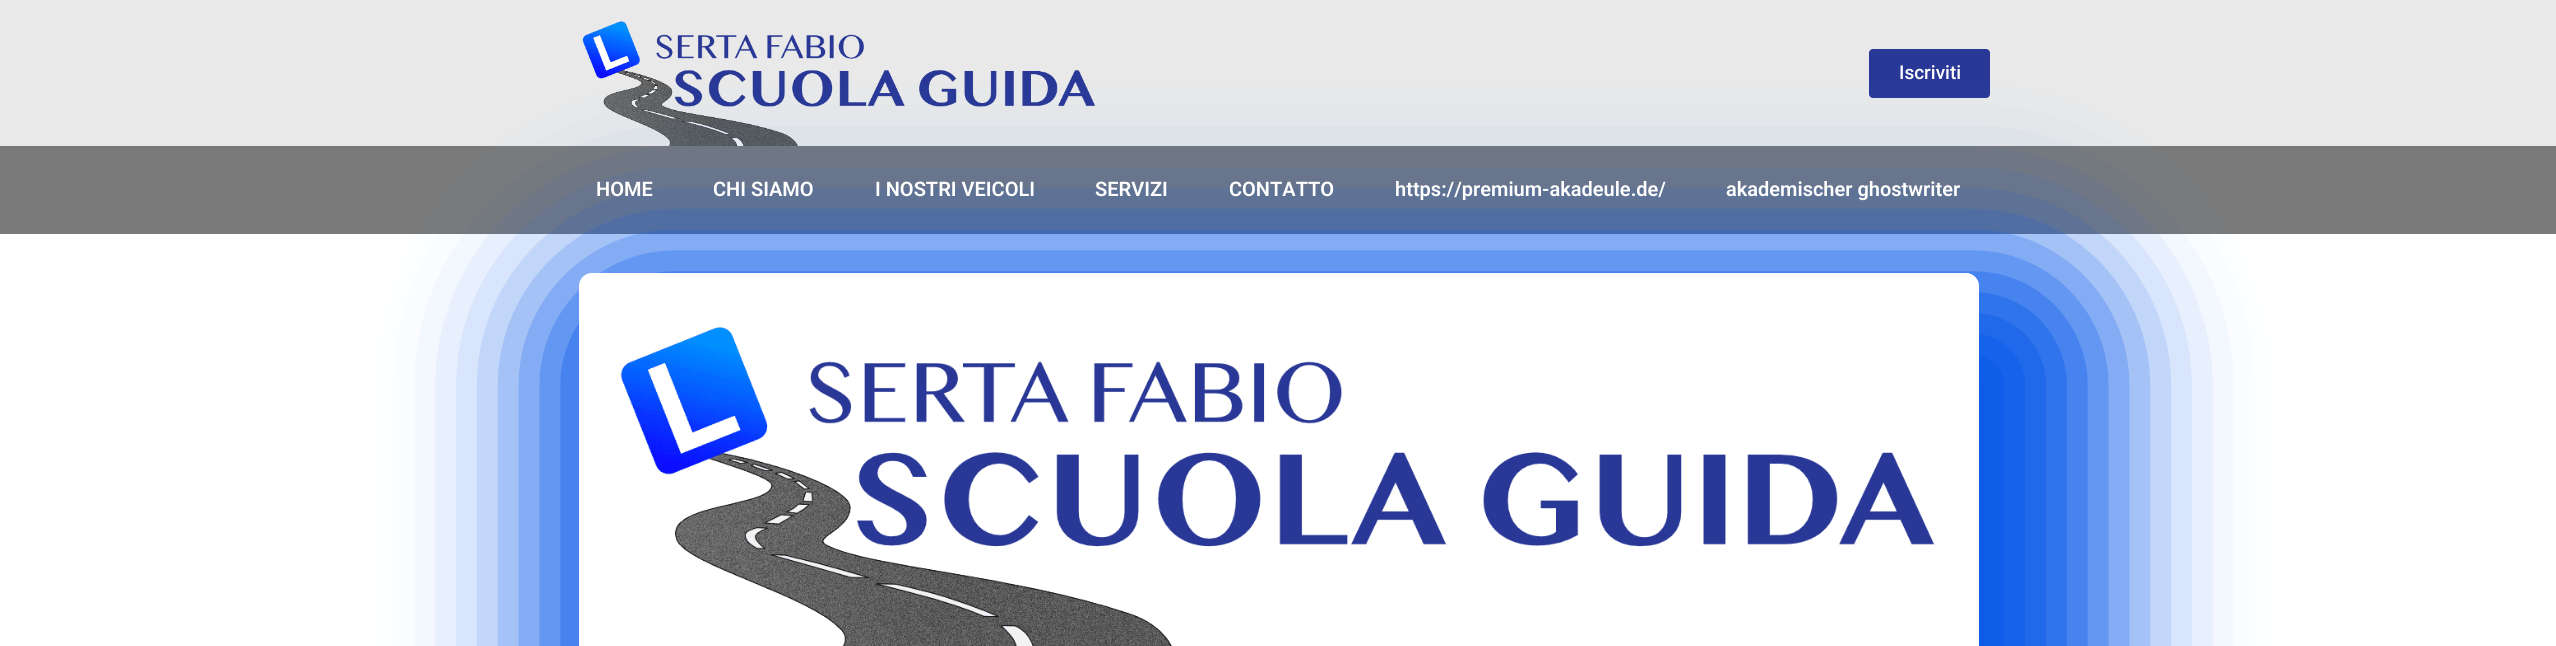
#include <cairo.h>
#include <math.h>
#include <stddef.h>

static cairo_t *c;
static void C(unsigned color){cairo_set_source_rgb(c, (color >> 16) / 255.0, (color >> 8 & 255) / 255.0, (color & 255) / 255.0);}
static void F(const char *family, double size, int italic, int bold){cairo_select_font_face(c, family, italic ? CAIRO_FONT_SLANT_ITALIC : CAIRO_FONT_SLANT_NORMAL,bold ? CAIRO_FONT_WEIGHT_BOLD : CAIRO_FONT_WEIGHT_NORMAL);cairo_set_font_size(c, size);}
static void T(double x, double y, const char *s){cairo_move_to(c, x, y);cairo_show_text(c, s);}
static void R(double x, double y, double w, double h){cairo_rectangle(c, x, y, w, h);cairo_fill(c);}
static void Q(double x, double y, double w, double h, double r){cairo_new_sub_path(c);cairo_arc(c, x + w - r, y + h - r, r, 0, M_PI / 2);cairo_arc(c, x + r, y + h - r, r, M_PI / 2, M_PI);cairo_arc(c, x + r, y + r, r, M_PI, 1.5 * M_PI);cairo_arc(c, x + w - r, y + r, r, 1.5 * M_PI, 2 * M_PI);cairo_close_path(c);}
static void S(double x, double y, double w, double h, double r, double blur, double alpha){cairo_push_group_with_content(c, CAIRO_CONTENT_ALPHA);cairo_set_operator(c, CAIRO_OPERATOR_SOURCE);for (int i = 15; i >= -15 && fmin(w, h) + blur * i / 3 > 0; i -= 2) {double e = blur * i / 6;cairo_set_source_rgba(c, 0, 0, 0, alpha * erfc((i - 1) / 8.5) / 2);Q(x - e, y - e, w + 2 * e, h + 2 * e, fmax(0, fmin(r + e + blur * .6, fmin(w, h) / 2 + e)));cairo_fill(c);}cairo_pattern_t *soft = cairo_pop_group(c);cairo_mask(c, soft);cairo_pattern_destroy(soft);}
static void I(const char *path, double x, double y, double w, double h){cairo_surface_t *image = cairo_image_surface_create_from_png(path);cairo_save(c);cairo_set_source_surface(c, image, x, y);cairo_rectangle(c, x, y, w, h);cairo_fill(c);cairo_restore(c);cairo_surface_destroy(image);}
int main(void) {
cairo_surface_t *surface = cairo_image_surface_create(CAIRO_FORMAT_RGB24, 2556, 646);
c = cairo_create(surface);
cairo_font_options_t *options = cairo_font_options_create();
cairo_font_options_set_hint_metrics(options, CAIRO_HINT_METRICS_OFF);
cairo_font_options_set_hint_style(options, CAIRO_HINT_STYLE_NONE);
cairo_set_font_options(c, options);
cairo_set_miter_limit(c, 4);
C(0xffffff);
cairo_paint(c);
C(0xe9e9e9);
R(0,0,2556,146);
I("2.png",582,21,513,125);
C(0x293896);
Q(1869,49,121,49,4);
cairo_fill(c);
C(0x7a7a7a);
R(0,146,2556,88);
cairo_save(c);
cairo_set_fill_rule(c,CAIRO_FILL_RULE_EVEN_ODD);
cairo_new_path(c);
cairo_move_to(c,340,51);
cairo_line_to(c,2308,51);
cairo_line_to(c,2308,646);
cairo_line_to(c,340,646);
cairo_close_path(c);
cairo_move_to(c,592,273);
cairo_line_to(c,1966,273);
cairo_curve_to(c,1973,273,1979,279,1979,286);
cairo_line_to(c,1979,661);
cairo_curve_to(c,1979,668,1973,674,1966,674);
cairo_line_to(c,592,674);
cairo_curve_to(c,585,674,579,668,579,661);
cairo_line_to(c,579,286);
cairo_curve_to(c,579,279,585,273,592,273);
cairo_close_path(c);
cairo_clip(c);
C(0x0a5ae9);
S(529,240,1590,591,108,62.5,1);
cairo_restore(c);
I("1.png",620,327,1315,319);
F("Roboto Medium",19,0,0);
C(0xffffff);
T(1899,79,"Iscriviti");
F("Roboto SemiBold",20,0,0);
T(596,196,"HOME");
T(713,196,"CHI SIAMO");
T(875,196,"I NOSTRI VEICOLI");
T(1095,196,"SERVIZI");
T(1229,196,"CONTATTO");
T(1395,196,"https://premium-akadeule.de/");
T(1726,196,"akademischer ghostwriter");
cairo_surface_write_to_png(surface, "o.png");
cairo_font_options_destroy(options);
cairo_destroy(c);
cairo_surface_destroy(surface);
return 0;
}
